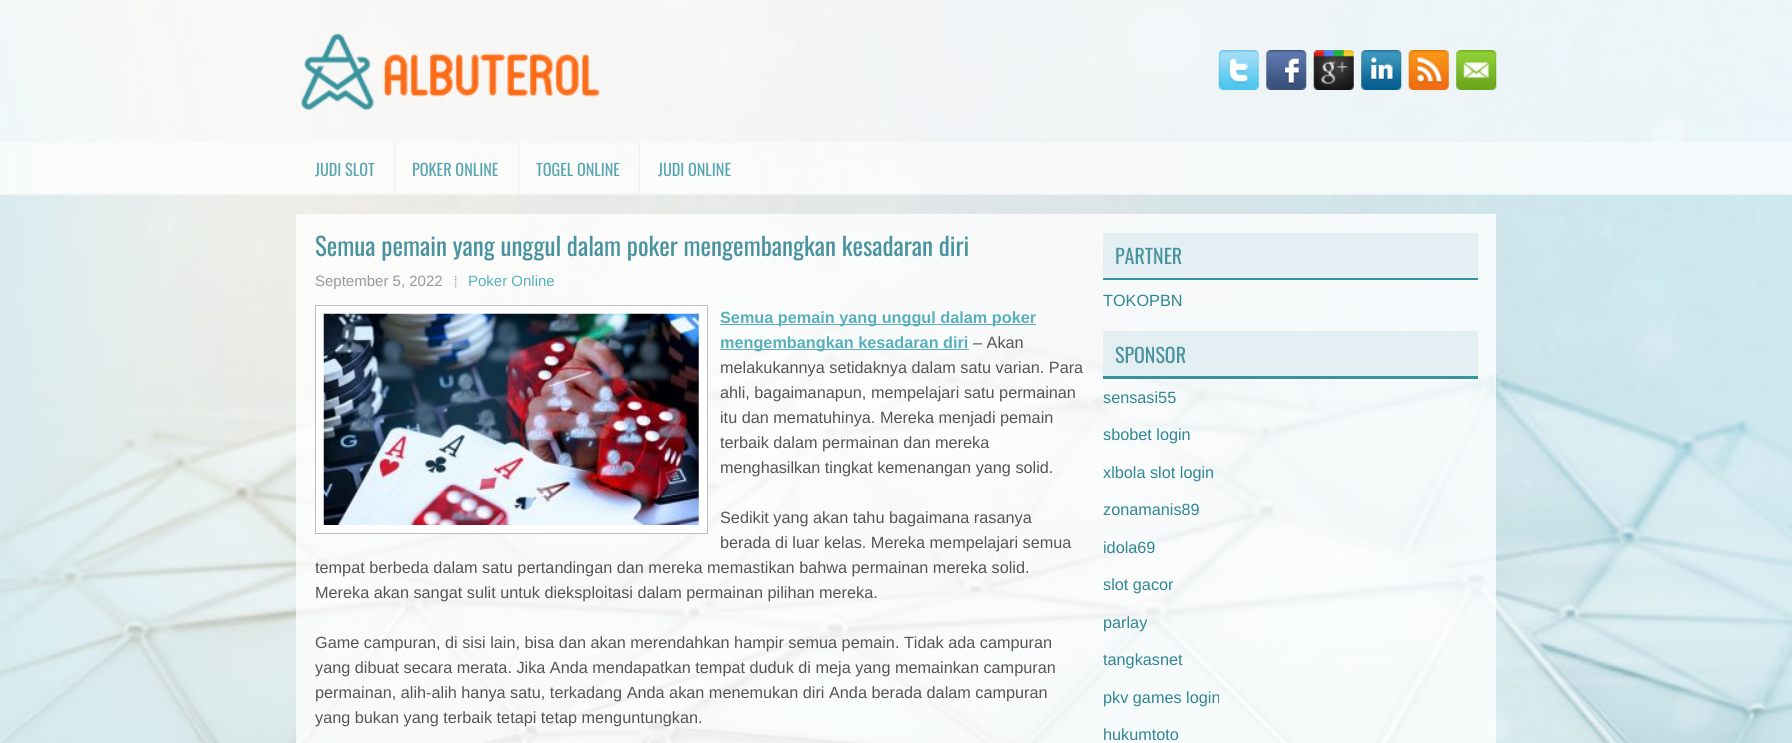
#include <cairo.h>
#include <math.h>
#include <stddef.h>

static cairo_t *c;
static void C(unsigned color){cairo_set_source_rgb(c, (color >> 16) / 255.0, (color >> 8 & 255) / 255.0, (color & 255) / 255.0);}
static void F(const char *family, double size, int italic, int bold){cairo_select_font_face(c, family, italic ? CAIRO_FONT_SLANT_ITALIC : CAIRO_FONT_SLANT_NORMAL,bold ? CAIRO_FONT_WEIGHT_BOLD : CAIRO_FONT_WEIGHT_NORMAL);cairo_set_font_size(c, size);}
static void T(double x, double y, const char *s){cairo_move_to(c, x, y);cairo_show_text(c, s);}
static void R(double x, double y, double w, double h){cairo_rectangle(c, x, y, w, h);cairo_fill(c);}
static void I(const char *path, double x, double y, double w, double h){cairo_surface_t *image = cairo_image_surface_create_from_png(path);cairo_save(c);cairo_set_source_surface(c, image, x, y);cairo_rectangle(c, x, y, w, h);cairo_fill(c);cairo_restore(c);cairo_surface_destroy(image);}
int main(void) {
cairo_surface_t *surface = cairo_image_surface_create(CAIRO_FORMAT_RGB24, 1792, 743);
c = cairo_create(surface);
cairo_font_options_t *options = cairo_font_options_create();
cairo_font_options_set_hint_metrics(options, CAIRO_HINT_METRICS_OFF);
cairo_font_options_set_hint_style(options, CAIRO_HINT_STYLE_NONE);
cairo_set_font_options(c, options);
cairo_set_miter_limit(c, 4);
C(0xffffff);
cairo_paint(c);
I("1.png",0,0,1792,743);
I("2.png",301,33,300,78);
I("3.png",1218,50,41,40);
I("4.png",1266,50,41,40);
I("5.png",1313,50,41,40);
I("6.png",1361,50,41,40);
I("7.png",1408,50,41,40);
I("8.png",1456,50,41,40);
F("Oswald",16.25,0,0);
C(0x58a7b0);
T(315,176,"JUDI SLOT");
C(0xeaf0f1);
R(394,143,1,52);
C(0x58a7b0);
T(412,176,"POKER ONLINE");
C(0xeaf0f1);
R(518,143,1,52);
C(0x58a7b0);
T(536,176,"TOGEL ONLINE");
C(0xeaf0f1);
R(639,143,1,52);
C(0x58a7b0);
T(658,176,"JUDI ONLINE");
cairo_set_source_rgba(c,1,1,1,0.8);
R(296,214,1200,529);
F("Oswald",25,0,0);
C(0x48939e);
T(315,256,"Semua pemain yang unggul dalam poker mengembangkan kesadaran diri");
F("Liberation Sans",15,0,0);
C(0x999999);
T(315,286,"September 5, 2022");
I("9.png",455,276,2,12);
C(0x58b0bc);
T(468,286,"Poker Online");
C(0xffffff);
cairo_rectangle(c,315.5,305.5,392,228);
cairo_fill_preserve(c);
C(0xbdbdbd);
cairo_set_line_width(c,1);
cairo_stroke(c);
I("10.png",323,313,376,212);
C(0x58b0bc);
R(720,324,316,1);
F("Liberation Sans",16.25,0,1);
T(720,323,"Semua pemain yang unggul dalam poker");
R(720,349,249,1);
T(720,348,"mengembangkan kesadaran diri");
F("Liberation Sans",16.25,0,0);
C(0x555555);
T(973,348,"– Akan");
T(720,373,"melakukannya setidaknya dalam satu varian. Para");
T(720,398,"ahli, bagaimanapun, mempelajari satu permainan");
T(720,423,"itu dan mematuhinya. Mereka menjadi pemain");
T(720,448,"terbaik dalam permainan dan mereka");
T(720,473,"menghasilkan tingkat kemenangan yang solid.");
T(720,523,"Sedikit yang akan tahu bagaimana rasanya");
T(720,548,"berada di luar kelas. Mereka mempelajari semua");
T(315,573,"tempat berbeda dalam satu pertandingan dan mereka memastikan bahwa permainan mereka solid.");
T(315,598,"Mereka akan sangat sulit untuk dieksploitasi dalam permainan pilihan mereka.");
T(315,648,"Game campuran, di sisi lain, bisa dan akan merendahkan hampir semua pemain. Tidak ada campuran");
T(315,673,"yang dibuat secara merata. Jika Anda mendapatkan tempat duduk di meja yang memainkan campuran");
T(315,698,"permainan, alih-alih hanya satu, terkadang Anda akan menemukan diri Anda berada dalam campuran");
T(315,723,"yang bukan yang terbaik tetapi tetap menguntungkan.");
C(0x39939d);
cairo_new_path(c);
cairo_move_to(c,1103,278);
cairo_line_to(c,1103,280);
cairo_line_to(c,1478,280);
cairo_line_to(c,1478,235);
cairo_line_to(c,1478,278);
cairo_close_path(c);
cairo_fill(c);
C(0xe3eff3);
R(1103,233,375,45);
F("Oswald",20,0,0);
C(0x48939e);
T(1115,264,"PARTNER");
F("Liberation Sans",16.25,0,0);
C(0x2f8694);
T(1103,306,"TOKOPBN");
C(0x39939d);
cairo_new_path(c);
cairo_move_to(c,1103,376);
cairo_line_to(c,1103,379);
cairo_line_to(c,1478,379);
cairo_line_to(c,1478,334);
cairo_line_to(c,1478,376);
cairo_close_path(c);
cairo_fill(c);
C(0xe3eff3);
R(1103,331,375,45);
F("Oswald",20,0,0);
C(0x48939e);
T(1115,363,"SPONSOR");
F("Liberation Sans",16.25,0,0);
C(0x2f8694);
T(1103,403,"sensasi55");
T(1103,440,"sbobet login");
T(1103,478,"xlbola slot login");
T(1103,515,"zonamanis89");
T(1103,553,"idola69");
T(1103,590,"slot gacor");
T(1103,628,"parlay");
T(1103,665,"tangkasnet");
T(1103,703,"pkv games login");
T(1103,740,"hukumtoto");
cairo_surface_write_to_png(surface, "o.png");
cairo_font_options_destroy(options);
cairo_destroy(c);
cairo_surface_destroy(surface);
return 0;
}
